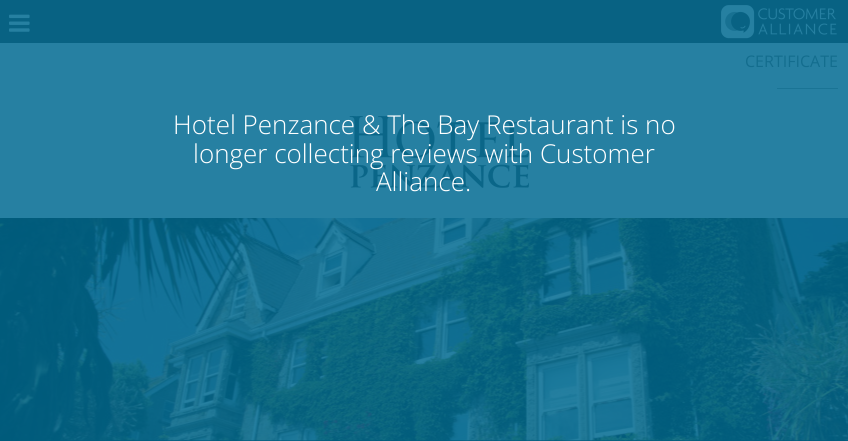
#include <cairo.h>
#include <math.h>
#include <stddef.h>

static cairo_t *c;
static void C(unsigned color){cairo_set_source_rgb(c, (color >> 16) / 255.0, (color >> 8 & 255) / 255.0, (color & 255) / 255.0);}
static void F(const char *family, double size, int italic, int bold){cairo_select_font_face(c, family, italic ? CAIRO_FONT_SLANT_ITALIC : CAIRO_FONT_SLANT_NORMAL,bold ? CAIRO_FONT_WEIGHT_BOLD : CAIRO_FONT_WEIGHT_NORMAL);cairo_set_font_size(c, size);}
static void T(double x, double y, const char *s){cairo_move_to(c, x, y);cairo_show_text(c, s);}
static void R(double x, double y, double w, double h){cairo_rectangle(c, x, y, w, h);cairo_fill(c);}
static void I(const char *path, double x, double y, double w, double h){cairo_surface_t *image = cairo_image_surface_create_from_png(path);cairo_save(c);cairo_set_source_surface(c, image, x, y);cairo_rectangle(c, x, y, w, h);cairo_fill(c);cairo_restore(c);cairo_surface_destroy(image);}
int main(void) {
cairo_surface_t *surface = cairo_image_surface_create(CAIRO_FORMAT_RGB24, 848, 441);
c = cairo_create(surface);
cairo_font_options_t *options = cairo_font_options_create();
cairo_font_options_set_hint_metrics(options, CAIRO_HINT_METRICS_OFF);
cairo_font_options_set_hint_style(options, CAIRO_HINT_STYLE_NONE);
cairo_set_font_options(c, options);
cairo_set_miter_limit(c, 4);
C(0x2680a2);
cairo_paint(c);
C(0x086283);
R(0,0,848,43);
I("1.png",9,14,21,18);
I("2.png",721,5,116,34);
F("Open Sans",16,0,0);
C(0x136d8e);
T(745,67,"CERTIFICATE");
C(0x1a7495);
R(777,88,61,1);
I("3.png",349,116,180,72);
F("Open Sans Light",26,0,0);
C(0xffffff);
T(173,134,"Hotel Penzance & The Bay Restaurant is no");
T(193,163,"longer collecting reviews with Customer");
T(376,191,"Alliance.");
I("4.png",0,218,848,223);
cairo_set_source_rgba(c,0,0.353,0.482,0.6);
R(49,440,799,1);
cairo_surface_write_to_png(surface, "o.png");
cairo_font_options_destroy(options);
cairo_destroy(c);
cairo_surface_destroy(surface);
return 0;
}
